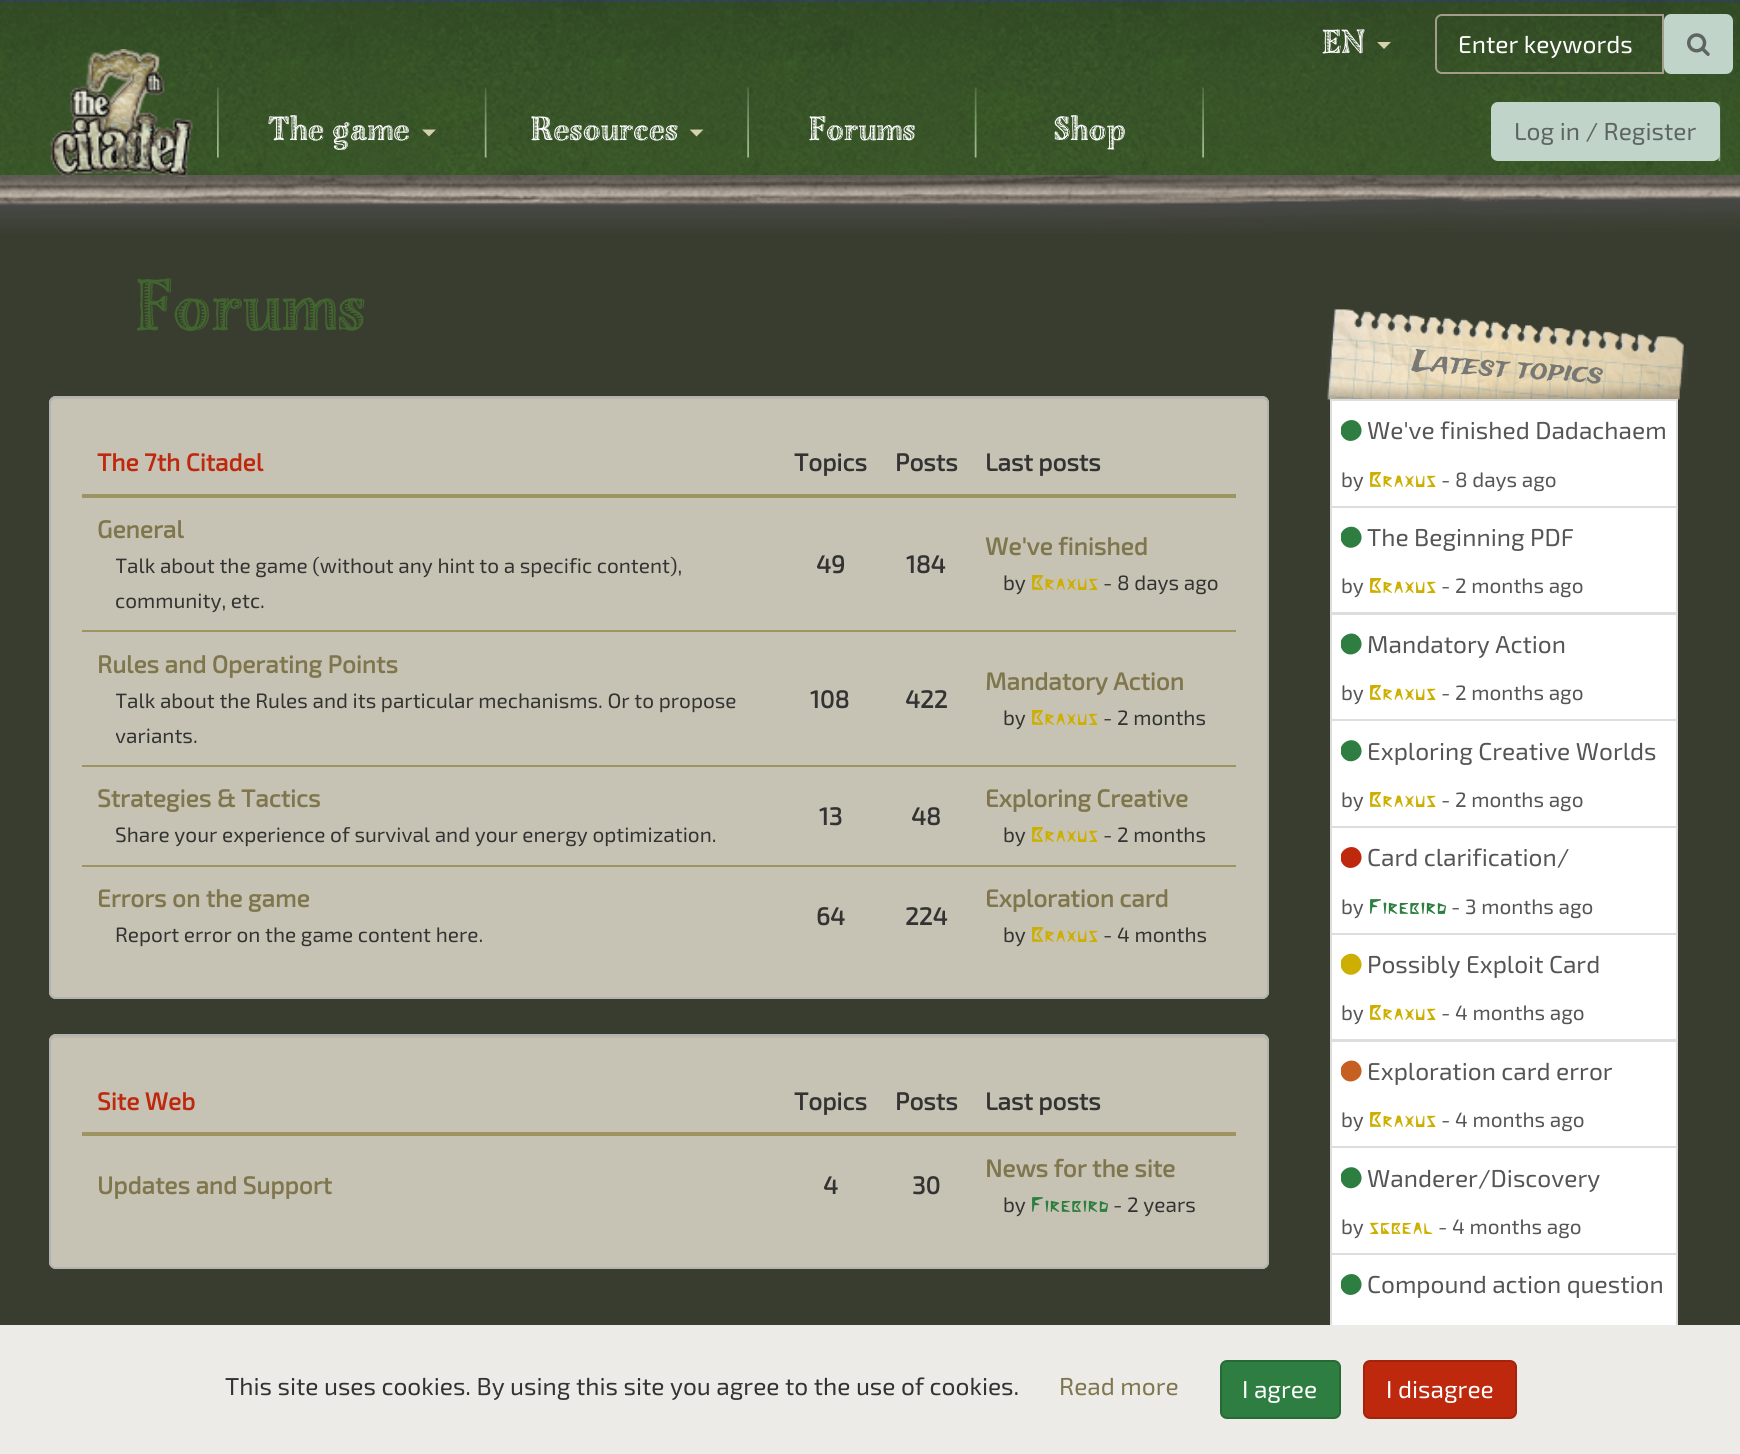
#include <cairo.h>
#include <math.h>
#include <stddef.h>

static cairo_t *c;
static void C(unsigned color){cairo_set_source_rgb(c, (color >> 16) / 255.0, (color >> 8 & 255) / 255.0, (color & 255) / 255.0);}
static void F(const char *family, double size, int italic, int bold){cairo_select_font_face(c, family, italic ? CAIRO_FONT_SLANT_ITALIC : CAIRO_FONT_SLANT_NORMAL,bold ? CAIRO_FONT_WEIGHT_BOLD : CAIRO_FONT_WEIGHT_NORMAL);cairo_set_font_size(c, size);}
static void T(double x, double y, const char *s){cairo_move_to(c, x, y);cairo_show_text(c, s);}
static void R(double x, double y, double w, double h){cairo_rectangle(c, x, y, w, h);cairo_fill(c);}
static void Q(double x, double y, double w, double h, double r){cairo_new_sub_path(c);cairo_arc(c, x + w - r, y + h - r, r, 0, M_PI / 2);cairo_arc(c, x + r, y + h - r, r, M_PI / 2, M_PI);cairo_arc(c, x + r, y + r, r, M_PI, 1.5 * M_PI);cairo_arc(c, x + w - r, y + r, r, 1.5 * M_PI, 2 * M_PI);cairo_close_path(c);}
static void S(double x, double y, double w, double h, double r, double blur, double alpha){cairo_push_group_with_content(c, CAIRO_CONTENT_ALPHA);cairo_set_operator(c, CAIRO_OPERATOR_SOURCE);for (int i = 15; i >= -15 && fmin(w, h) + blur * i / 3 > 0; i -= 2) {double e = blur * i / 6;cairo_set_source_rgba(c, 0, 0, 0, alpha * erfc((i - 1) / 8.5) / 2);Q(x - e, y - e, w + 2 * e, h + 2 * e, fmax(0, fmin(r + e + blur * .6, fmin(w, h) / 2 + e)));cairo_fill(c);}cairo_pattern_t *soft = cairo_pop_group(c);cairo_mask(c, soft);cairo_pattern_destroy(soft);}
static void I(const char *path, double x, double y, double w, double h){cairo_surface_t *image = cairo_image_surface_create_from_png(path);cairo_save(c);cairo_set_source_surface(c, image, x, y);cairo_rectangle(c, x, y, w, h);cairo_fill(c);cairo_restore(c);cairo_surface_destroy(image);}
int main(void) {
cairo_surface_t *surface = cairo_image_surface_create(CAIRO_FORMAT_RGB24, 1740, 1454);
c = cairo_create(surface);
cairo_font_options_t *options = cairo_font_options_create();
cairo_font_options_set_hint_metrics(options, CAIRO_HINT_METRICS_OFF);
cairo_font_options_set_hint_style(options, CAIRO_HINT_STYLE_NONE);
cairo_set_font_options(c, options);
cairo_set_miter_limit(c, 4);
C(0x393d2f);
cairo_paint(c);
I("10.png",0,175,1740,58);
C(0x000000);
S(-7,-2,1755,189,0,5,.5);
I("1.png",0,0,1740,175);
I("2.png",217,87,2,71);
I("3.png",49,49,144,128);
F("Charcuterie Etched",35.5,0,0);
C(0xffffff);
T(1322,53,"EN");
C(0xd4d1ad);
cairo_new_path(c);
cairo_move_to(c,1377,42);
cairo_line_to(c,1391,42);
cairo_line_to(c,1384,49);
cairo_close_path(c);
cairo_fill(c);
cairo_new_path(c);
cairo_move_to(c,1442,15);
cairo_line_to(c,1663,15);
cairo_line_to(c,1663,73);
cairo_line_to(c,1442,73);
cairo_curve_to(c,1438.5,73,1436,70.5,1436,67);
cairo_line_to(c,1436,21);
cairo_curve_to(c,1436,17.5,1438.5,15,1442,15);
cairo_close_path(c);
C(0xa49c8c);
cairo_stroke(c);
F("Exo 2",24.5,0,0);
C(0xffffff);
T(1458,53,"Enter keywords");
C(0xc0d4ca);
Q(1665,15,67,58,6);
cairo_fill_preserve(c);
cairo_stroke(c);
I("4.png",1687,33,23,23);
I("5.png",484,87,3,71);
F("Charcuterie Etched",35.5,0,0);
C(0xffffff);
T(268,140,"The game");
C(0xd4d1ad);
cairo_new_path(c);
cairo_move_to(c,422,129.5);
cairo_line_to(c,436,129.5);
cairo_line_to(c,429,136.5);
cairo_close_path(c);
cairo_fill(c);
I("6.png",747,87,2,71);
C(0xffffff);
T(531,140,"Resources");
C(0xd4d1ad);
cairo_new_path(c);
cairo_move_to(c,689.5,129.5);
cairo_line_to(c,703.5,129.5);
cairo_line_to(c,696.5,136.5);
cairo_close_path(c);
cairo_fill(c);
I("7.png",974,87,3,71);
C(0xffffff);
T(809,140,"Forums");
I("8.png",1202,87,2,71);
T(1054,140,"Shop");
I("9.png",1718,101,3,60);
C(0xc0d4ca);
Q(1492,103,227,57,6);
cairo_fill_preserve(c);
cairo_stroke(c);
F("Exo 2",24.5,0,0);
C(0x5e6560);
T(1514,140,"Log in / Register");
F("Charcuterie Etched",76.5,0,0);
C(0x426530);
T(136,330,"Forums");
C(0xc7c3b4);
Q(49,396,1220,603,7);
cairo_fill(c);
C(0xbdb9ab);
cairo_new_path(c);
cairo_move_to(c,56,399);
cairo_line_to(c,1262,399);
cairo_curve_to(c,1265,399,1267,401,1267,404);
cairo_line_to(c,1267,402);
cairo_curve_to(c,1267,399,1265,397,1262,397);
cairo_line_to(c,56,397);
cairo_curve_to(c,53,397,51,399,51,402);
cairo_line_to(c,51,404);
cairo_curve_to(c,51,401,53,399,56,399);
cairo_close_path(c);
cairo_fill(c);
Q(50,397,1218,601,6);
C(0xb3b3b3);
cairo_stroke(c);
F("Exo 2",24.5,0,1);
C(0xbe280d);
T(97,471,"The 7th Citadel");
C(0x333333);
T(794,471,"Topics");
T(895,471,"Posts");
C(0x9f9361);
R(82,494,1154,4);
C(0x333333);
T(985,471,"Last posts");
C(0x80764d);
T(97,538,"General");
cairo_save(c);
cairo_rectangle(c,116,546,651,70);
cairo_clip(c);
F("Exo 2",20.8,0,0);
C(0x333333);
T(115,573,"Talk about the game (without any hint to a specific content),");
T(115,608,"community, etc.");
cairo_restore(c);
C(0x333333);
T(816,573,"49");
T(906,573,"184");
C(0x80764d);
T(985,555,"We've finished");
F("Exo 2",20.8,0,0);
C(0x333333);
T(1003,590,"by");
F("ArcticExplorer",20.8,0,0);
C(0xcdaf02);
T(1030,590,"Braxus");
F("Exo 2",20.8,0,0);
C(0x333333);
T(1103,590,"- 8 days ago");
F("Exo 2",24.5,0,1);
C(0x80764d);
T(97,673,"Rules and Operating Points");
cairo_save(c);
cairo_rectangle(c,116,681,651,70);
cairo_clip(c);
F("Exo 2",20.8,0,0);
C(0x333333);
T(115,708,"Talk about the Rules and its particular mechanisms. Or to propose");
T(115,743,"variants.");
cairo_restore(c);
C(0x333333);
T(810,708,"108");
T(905,708,"422");
C(0x9f9361);
R(82,630,1154,2);
C(0x80764d);
T(985,690,"Mandatory Action");
F("Exo 2",20.8,0,0);
C(0x333333);
T(1003,725,"by");
F("ArcticExplorer",20.8,0,0);
C(0xcdaf02);
T(1030,725,"Braxus");
F("Exo 2",20.8,0,0);
C(0x333333);
T(1103,725,"- 2 months");
F("Exo 2",24.5,0,1);
C(0x80764d);
T(97,807,"Strategies & Tactics");
cairo_save(c);
cairo_rectangle(c,116,816,651,35);
cairo_clip(c);
F("Exo 2",20.8,0,0);
C(0x333333);
T(115,842,"Share your experience of survival and your energy optimization.");
cairo_restore(c);
C(0x333333);
T(819,825,"13");
T(911,825,"48");
C(0x9f9361);
R(82,765,1154,2);
C(0x80764d);
T(985,807,"Exploring Creative");
F("Exo 2",20.8,0,0);
C(0x333333);
T(1003,842,"by");
F("ArcticExplorer",20.8,0,0);
C(0xcdaf02);
T(1030,842,"Braxus");
F("Exo 2",20.8,0,0);
C(0x333333);
T(1103,842,"- 2 months");
F("Exo 2",24.5,0,1);
C(0x80764d);
T(97,907,"Errors on the game");
F("Exo 2",20.8,0,0);
C(0x333333);
T(115,942,"Report error on the game content here.");
F("Exo 2",24.5,0,1);
T(816,925,"64");
T(905,925,"224");
C(0x9f9361);
R(82,865,1154,2);
C(0x80764d);
T(985,907,"Exploration card");
F("Exo 2",20.8,0,0);
C(0x333333);
T(1003,942,"by");
F("ArcticExplorer",20.8,0,0);
C(0xcdaf02);
T(1030,942,"Braxus");
F("Exo 2",20.8,0,0);
C(0x333333);
T(1103,942,"- 4 months");
C(0xc7c3b4);
Q(49,1034,1220,235,7);
cairo_fill(c);
C(0xbdb9ab);
cairo_new_path(c);
cairo_move_to(c,56,1038);
cairo_line_to(c,1262,1038);
cairo_curve_to(c,1265,1038,1267,1040,1267,1043);
cairo_line_to(c,1267,1041);
cairo_curve_to(c,1267,1038,1265,1036,1262,1036);
cairo_line_to(c,56,1036);
cairo_curve_to(c,53,1036,51,1038,51,1041);
cairo_line_to(c,51,1043);
cairo_curve_to(c,51,1040,53,1038,56,1038);
cairo_close_path(c);
cairo_fill(c);
Q(50,1035,1218,233,6);
C(0xb3b3b3);
cairo_stroke(c);
F("Exo 2",24.5,0,1);
C(0xbe280d);
T(97,1110,"Site Web");
C(0x333333);
T(794,1110,"Topics");
T(895,1110,"Posts");
C(0x9f9361);
R(82,1132,1154,4);
C(0x333333);
T(985,1110,"Last posts");
C(0x80764d);
T(97,1194,"Updates and Support");
C(0x333333);
T(823,1194,"4");
T(912,1194,"30");
C(0x80764d);
T(985,1177,"News for the site");
F("Exo 2",20.8,0,0);
C(0x333333);
T(1003,1212,"by");
F("ArcticExplorer",20.8,0,0);
C(0x2d7e40);
T(1030,1212,"Firebird");
F("Exo 2",20.8,0,0);
C(0x333333);
T(1113,1212,"- 2 years");
I("11.png",1327,308,361,93);
F("Trade Winds",29.5,0,0);
C(0x777774);
cairo_save(c);
cairo_translate(c,1412,370);
cairo_rotate(c,4 * M_PI / 180);
T(0,0,"Latest topics");
cairo_restore(c);
C(0xffffff);
cairo_rectangle(c,1331,400,346,107);
cairo_fill_preserve(c);
C(0xdddddd);
cairo_stroke(c);
cairo_save(c);
cairo_rectangle(c,1341,415,327,30);
cairo_clip(c);
C(0x2d7e40);
cairo_new_path(c);
cairo_move_to(c,1360,425);
cairo_curve_to(c,1367,437,1349,447.5,1342,436);
cairo_curve_to(c,1335,424,1353,413.5,1360,425);
cairo_close_path(c);
cairo_fill(c);
cairo_restore(c);
F("Exo 2",24.5,0,0);
C(0x555555);
T(1367,439,"We've finished Dadachaem");
F("Exo 2",20.8,0,0);
T(1341,487,"by");
F("ArcticExplorer",20.8,0,0);
C(0xcdaf02);
T(1368,487,"Braxus");
F("Exo 2",20.8,0,0);
C(0x555555);
T(1441,487,"- 8 days ago");
C(0xffffff);
cairo_rectangle(c,1331,507,346,106);
cairo_fill_preserve(c);
C(0xdddddd);
cairo_stroke(c);
cairo_save(c);
cairo_rectangle(c,1341,522,327,29);
cairo_clip(c);
C(0x2d7e40);
cairo_new_path(c);
cairo_move_to(c,1360,532);
cairo_curve_to(c,1367,544,1349,554.5,1342,542.5);
cairo_curve_to(c,1335,530.5,1353,520,1360,532);
cairo_close_path(c);
cairo_fill(c);
cairo_restore(c);
F("Exo 2",24.5,0,0);
C(0x555555);
T(1367,546,"The Beginning PDF");
F("Exo 2",20.8,0,0);
T(1341,593,"by");
F("ArcticExplorer",20.8,0,0);
C(0xcdaf02);
T(1368,593,"Braxus");
F("Exo 2",20.8,0,0);
C(0x555555);
T(1441,593,"- 2 months ago");
C(0xffffff);
cairo_rectangle(c,1331,614,346,106);
cairo_fill_preserve(c);
C(0xdddddd);
cairo_stroke(c);
cairo_save(c);
cairo_rectangle(c,1341,628,327,30);
cairo_clip(c);
C(0x2d7e40);
cairo_new_path(c);
cairo_move_to(c,1360,638.5);
cairo_curve_to(c,1367,650.5,1349,661,1342,649.5);
cairo_curve_to(c,1335,637.5,1353,627,1360,638.5);
cairo_close_path(c);
cairo_fill(c);
cairo_restore(c);
F("Exo 2",24.5,0,0);
C(0x555555);
T(1367,653,"Mandatory Action");
F("Exo 2",20.8,0,0);
T(1341,700,"by");
F("ArcticExplorer",20.8,0,0);
C(0xcdaf02);
T(1368,700,"Braxus");
F("Exo 2",20.8,0,0);
C(0x555555);
T(1441,700,"- 2 months ago");
C(0xffffff);
cairo_rectangle(c,1331,720,346,107);
cairo_fill_preserve(c);
C(0xdddddd);
cairo_stroke(c);
cairo_save(c);
cairo_rectangle(c,1341,735,327,30);
cairo_clip(c);
C(0x2d7e40);
cairo_new_path(c);
cairo_move_to(c,1360,745.5);
cairo_curve_to(c,1367,757.5,1349,768,1342,756);
cairo_curve_to(c,1335,744,1353,733.5,1360,745.5);
cairo_close_path(c);
cairo_fill(c);
cairo_restore(c);
F("Exo 2",24.5,0,0);
C(0x555555);
T(1367,760,"Exploring Creative Worlds");
F("Exo 2",20.8,0,0);
T(1341,807,"by");
F("ArcticExplorer",20.8,0,0);
C(0xcdaf02);
T(1368,807,"Braxus");
F("Exo 2",20.8,0,0);
C(0x555555);
T(1441,807,"- 2 months ago");
C(0xffffff);
cairo_rectangle(c,1331,827,346,107);
cairo_fill_preserve(c);
C(0xdddddd);
cairo_stroke(c);
cairo_save(c);
cairo_rectangle(c,1341,842,327,30);
cairo_clip(c);
C(0xbe280d);
cairo_new_path(c);
cairo_move_to(c,1360,852);
cairo_curve_to(c,1367,864,1349,874.5,1342,863);
cairo_curve_to(c,1335,851,1353,840.5,1360,852);
cairo_close_path(c);
cairo_fill(c);
cairo_restore(c);
F("Exo 2",24.5,0,0);
C(0x555555);
T(1367,866,"Card clarification/");
F("Exo 2",20.8,0,0);
T(1341,914,"by");
F("ArcticExplorer",20.8,0,0);
C(0x2d7e40);
T(1368,914,"Firebird");
F("Exo 2",20.8,0,0);
C(0x555555);
T(1451,914,"- 3 months ago");
C(0xffffff);
cairo_rectangle(c,1331,934,346,106);
cairo_fill_preserve(c);
C(0xdddddd);
cairo_stroke(c);
cairo_save(c);
cairo_rectangle(c,1341,949,327,29);
cairo_clip(c);
C(0xcdaf02);
cairo_new_path(c);
cairo_move_to(c,1360,959);
cairo_curve_to(c,1367,971,1349,981.5,1342,969.5);
cairo_curve_to(c,1335,957.5,1353,947,1360,959);
cairo_close_path(c);
cairo_fill(c);
cairo_restore(c);
F("Exo 2",24.5,0,0);
C(0x555555);
T(1367,973,"Possibly Exploit Card");
F("Exo 2",20.8,0,0);
T(1341,1020,"by");
F("ArcticExplorer",20.8,0,0);
C(0xcdaf02);
T(1368,1020,"Braxus");
F("Exo 2",20.8,0,0);
C(0x555555);
T(1441,1020,"- 4 months ago");
C(0xffffff);
cairo_rectangle(c,1331,1041,346,106);
cairo_fill_preserve(c);
C(0xdddddd);
cairo_stroke(c);
cairo_save(c);
cairo_rectangle(c,1341,1055,327,30);
cairo_clip(c);
C(0xc65f22);
cairo_new_path(c);
cairo_move_to(c,1360,1065.5);
cairo_curve_to(c,1367,1077.5,1349,1088,1342,1076.5);
cairo_curve_to(c,1335,1064.5,1353,1054,1360,1065.5);
cairo_close_path(c);
cairo_fill(c);
cairo_restore(c);
F("Exo 2",24.5,0,0);
C(0x555555);
T(1367,1080,"Exploration card error");
F("Exo 2",20.8,0,0);
T(1341,1127,"by");
F("ArcticExplorer",20.8,0,0);
C(0xcdaf02);
T(1368,1127,"Braxus");
F("Exo 2",20.8,0,0);
C(0x555555);
T(1441,1127,"- 4 months ago");
C(0xffffff);
cairo_rectangle(c,1331,1147,346,107);
cairo_fill_preserve(c);
C(0xdddddd);
cairo_stroke(c);
cairo_save(c);
cairo_rectangle(c,1341,1162,327,30);
cairo_clip(c);
C(0x2d7e40);
cairo_new_path(c);
cairo_move_to(c,1360,1172.5);
cairo_curve_to(c,1367,1184.5,1349,1195,1342,1183);
cairo_curve_to(c,1335,1171,1353,1160.5,1360,1172.5);
cairo_close_path(c);
cairo_fill(c);
cairo_restore(c);
F("Exo 2",24.5,0,0);
C(0x555555);
T(1367,1187,"Wanderer/Discovery");
F("Exo 2",20.8,0,0);
T(1341,1234,"by");
F("ArcticExplorer",20.8,0,0);
C(0xcdaf02);
T(1368,1234,"sgbeal");
F("Exo 2",20.8,0,0);
C(0x555555);
T(1438,1234,"- 4 months ago");
C(0xffffff);
R(1332,1255,344,70);
cairo_rectangle(c,1331,1254,346,107);
C(0xdddddd);
cairo_stroke(c);
cairo_save(c);
cairo_rectangle(c,1341,1269,327,30);
cairo_clip(c);
C(0x2d7e40);
cairo_new_path(c);
cairo_move_to(c,1360,1279);
cairo_curve_to(c,1367,1291,1349,1301.5,1342,1290);
cairo_curve_to(c,1335,1278,1353,1267.5,1360,1279);
cairo_close_path(c);
cairo_fill(c);
cairo_restore(c);
F("Exo 2",24.5,0,0);
C(0x555555);
T(1367,1293,"Compound action question");
C(0xecebe8);
R(0,1325,1740,129);
C(0x333333);
T(225,1395,"This site uses cookies. By using this site you agree to the use of cookies.");
C(0x80764d);
T(1059,1395,"Read more");
C(0x2d7e40);
Q(1221,1361,119,57,6);
cairo_fill_preserve(c);
C(0x266b36);
cairo_stroke(c);
C(0xffffff);
T(1242,1398,"I agree");
C(0xbe280d);
Q(1364,1361,152,57,6);
cairo_fill_preserve(c);
C(0xa6230b);
cairo_stroke(c);
C(0xffffff);
T(1386,1398,"I disagree");
cairo_surface_write_to_png(surface, "o.png");
cairo_font_options_destroy(options);
cairo_destroy(c);
cairo_surface_destroy(surface);
return 0;
}
